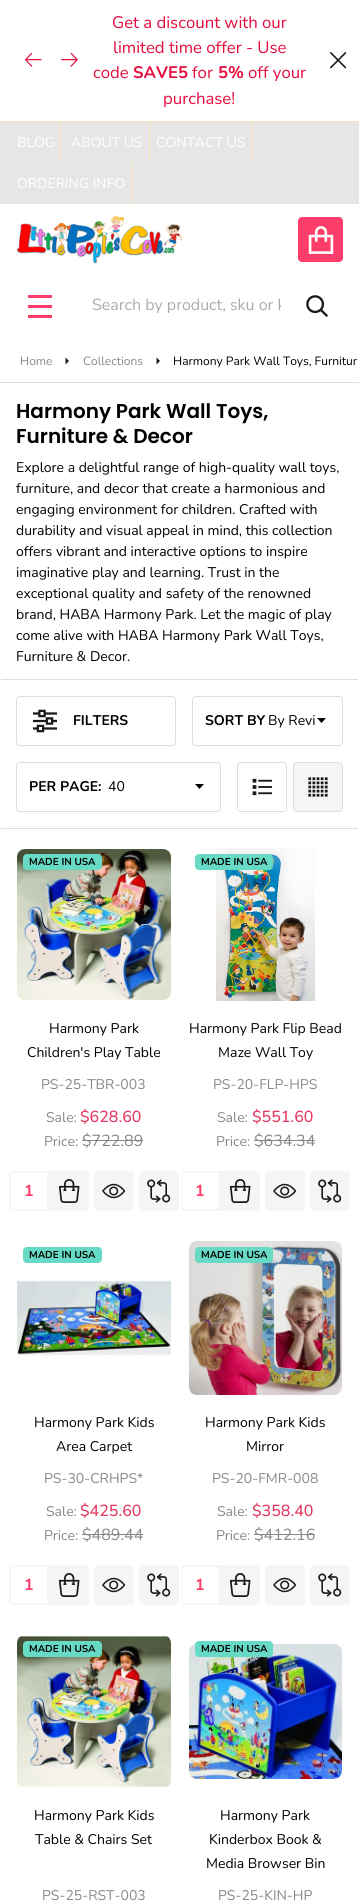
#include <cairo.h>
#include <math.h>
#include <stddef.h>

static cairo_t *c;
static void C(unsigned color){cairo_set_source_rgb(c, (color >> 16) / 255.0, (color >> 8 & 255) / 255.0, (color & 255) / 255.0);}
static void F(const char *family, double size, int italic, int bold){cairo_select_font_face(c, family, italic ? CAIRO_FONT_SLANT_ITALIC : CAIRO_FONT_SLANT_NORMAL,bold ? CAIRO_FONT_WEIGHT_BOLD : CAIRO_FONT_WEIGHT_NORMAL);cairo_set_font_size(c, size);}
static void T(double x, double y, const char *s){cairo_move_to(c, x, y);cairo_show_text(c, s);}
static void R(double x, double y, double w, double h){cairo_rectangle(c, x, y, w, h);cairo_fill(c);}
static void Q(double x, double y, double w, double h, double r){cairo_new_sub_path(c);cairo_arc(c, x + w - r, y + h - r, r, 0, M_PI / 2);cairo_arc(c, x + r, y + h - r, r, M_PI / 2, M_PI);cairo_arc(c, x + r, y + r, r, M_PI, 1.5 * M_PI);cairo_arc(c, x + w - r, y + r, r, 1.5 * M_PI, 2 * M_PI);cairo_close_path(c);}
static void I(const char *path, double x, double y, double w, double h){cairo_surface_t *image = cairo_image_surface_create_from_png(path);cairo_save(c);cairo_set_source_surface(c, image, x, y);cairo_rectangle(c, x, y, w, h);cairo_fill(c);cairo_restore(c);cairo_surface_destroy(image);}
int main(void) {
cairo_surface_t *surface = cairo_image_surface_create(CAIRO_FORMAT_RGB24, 359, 1902);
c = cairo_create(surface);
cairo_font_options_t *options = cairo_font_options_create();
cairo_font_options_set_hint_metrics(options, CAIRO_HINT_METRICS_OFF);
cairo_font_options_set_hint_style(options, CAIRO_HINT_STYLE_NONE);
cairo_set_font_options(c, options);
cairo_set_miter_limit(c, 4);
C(0xffffff);
cairo_paint(c);
C(0xf7e4be);
R(0,121,359,1);
I("1.png",25,53,17,14);
I("2.png",61,53,17,14);
F("Nunito",16.75,0,0);
C(0xe50b3d);
T(112,28,"Get a discount with our");
T(113,53,"limited time offer - Use");
T(93,78,"code");
F("Nunito",16.75,0,1);
T(133,78,"SAVE5");
F("Nunito",16.75,0,0);
T(192,78,"for");
F("Nunito",16.75,0,1);
T(218,78,"5%");
F("Nunito",16.75,0,0);
T(248,78,"off your");
T(163,104,"purchase!");
I("3.png",330,52,17,17);
C(0xe6e6e6);
R(0,122,359,82);
C(0xf7e4be);
R(60,122,1,41);
F("Nunito",14,0,0);
C(0xffffff);
T(17,147,"BLOG");
C(0xf7e4be);
R(149,122,1,41);
C(0xffffff);
T(71,147,"ABOUT US");
C(0xf7e4be);
R(251,122,1,41);
C(0xffffff);
T(156,147,"CONTACT US");
C(0xf7e4be);
R(131,163,1,41);
C(0xffffff);
T(17,188,"ORDERING INFO");
I("4.png",16,215,167,49);
C(0xff3d6a);
Q(298,217,45,45,4);
cairo_fill(c);
I("5.png",308,226,26,28);
R(28,305,24,3);
R(28,295,24,3);
R(28,315,24,3);
cairo_save(c);
cairo_rectangle(c,92,294,189,22);
cairo_clip(c);
F("Nunito",16,0,0);
C(0xaaaaaa);
T(92,310,"Search by product, sku or k");
cairo_restore(c);
I("6.png",306,295,22,22);
C(0xdddddd);
R(0,382,359,1);
F("Nunito",12,0,0);
C(0x888888);
T(20,365,"Home");
C(0x1a1a1a);
cairo_new_path(c);
cairo_move_to(c,65.5,364.5);
cairo_line_to(c,69,361);
cairo_line_to(c,65.5,357.5);
cairo_close_path(c);
cairo_fill(c);
C(0x888888);
T(83,365,"Collections");
C(0x1a1a1a);
cairo_new_path(c);
cairo_move_to(c,156.5,364.5);
cairo_line_to(c,160,361);
cairo_line_to(c,156.5,357.5);
cairo_close_path(c);
cairo_fill(c);
C(0x000000);
T(173,365,"Harmony Park Wall Toys, Furnitur");
F("Poppins SemiBold",20,0,0);
T(16,418,"Harmony Park Wall Toys,");
T(16,443,"Furniture & Decor");
F("Nunito",14,0,0);
T(16,472,"Explore a delightful range of high-quality wall toys,");
T(16,493,"furniture, and decor that create a harmonious and");
T(16,514,"engaging environment for children. Crafted with");
T(16,535,"durability and visual appeal in mind, this collection");
T(16,556,"offers vibrant and interactive options to inspire");
T(16,577,"imaginative play and learning. Trust in the");
T(16,598,"exceptional quality and safety of the renowned");
T(16,619,"brand, HABA Harmony Park. Let the magic of play");
T(16,640,"come alive with HABA Harmony Park Wall Toys,");
T(16,661,"Furniture & Decor.");
C(0xdddddd);
R(1,679,357,1);
R(1,828,357,1);
Q(16.5,696.5,159,49,3.5);
cairo_set_line_width(c,1);
cairo_stroke(c);
I("7.png",33,709,24,24);
F("Nunito",14,0,1);
C(0x000000);
T(73,725,"FILTERS");
Q(192.5,696.5,150,49,3.5);
C(0xdddddd);
cairo_stroke(c);
C(0x000000);
T(205,725,"SORT BY");
cairo_new_path(c);
cairo_move_to(c,317,718);
cairo_line_to(c,321.5,723);
cairo_line_to(c,326,718);
cairo_close_path(c);
cairo_fill(c);
F("Nunito",14,0,0);
T(268,725,"By Revi");
Q(16.5,762.5,204,49,3.5);
C(0xdddddd);
cairo_stroke(c);
F("Nunito",14,0,1);
C(0x000000);
T(29,791,"PER PAGE:");
cairo_new_path(c);
cairo_move_to(c,195,784);
cairo_line_to(c,199.5,789);
cairo_line_to(c,204,784);
cairo_close_path(c);
cairo_fill(c);
F("Nunito",14,0,0);
T(108,791,"40");
Q(237.5,762.5,49,49,3.5);
C(0xdddddd);
cairo_stroke(c);
I("8.png",252,778,20,18);
C(0xf5f5f5);
Q(293.5,762.5,49,49,3.5);
cairo_fill_preserve(c);
C(0xdddddd);
cairo_stroke(c);
I("9.png",308,777,20,20);
I("10.png",17,849,154,151);
C(0x67dac5);
Q(23,854,79,16,4);
cairo_fill(c);
F("Nunito",10,0,1);
C(0x000000);
T(29,865,"MADE IN USA");
F("Nunito",14,0,0);
T(49,1033,"Harmony Park");
T(27,1057,"Children's Play Table");
C(0x888888);
T(41,1089,"PS-25-TBR-003");
T(46,1122,"Sale:");
F("Nunito Medium",16,0,0);
C(0xe5375f);
T(80,1122,"$628.60");
F("Nunito",14,0,0);
C(0x888888);
T(44,1146,"Price:");
F("Nunito",16,0,0);
T(82,1146,"$722.89");
R(82,1140,61,1);
cairo_new_path(c);
cairo_move_to(c,13,1172);
cairo_line_to(c,48,1172);
cairo_line_to(c,48,1210);
cairo_line_to(c,13,1210);
cairo_curve_to(c,11.5,1210,10,1208.5,10,1207);
cairo_line_to(c,10,1175);
cairo_curve_to(c,10,1173.5,11.5,1172,13,1172);
cairo_close_path(c);
C(0xf5f5f5);
cairo_set_line_width(c,2);
cairo_stroke(c);
F("Nunito",16,0,1);
C(0xff3d6a);
T(24,1196,"1");
C(0xf5f5f5);
cairo_new_path(c);
cairo_move_to(c,49,1171);
cairo_line_to(c,85,1171);
cairo_curve_to(c,87,1171,89,1173,89,1175);
cairo_line_to(c,89,1207);
cairo_curve_to(c,89,1209,87,1211,85,1211);
cairo_line_to(c,49,1211);
cairo_close_path(c);
cairo_fill(c);
I("11.png",58,1179,22,24);
Q(94,1171,40,40,4);
cairo_fill(c);
I("12.png",102,1183,24,16);
Q(139,1171,40,40,4);
cairo_fill(c);
I("13.png",147,1179,24,24);
I("14.png",216,848,99,153);
C(0x67dac5);
Q(195,854,78,16,4);
cairo_fill(c);
F("Nunito",10,0,1);
C(0x000000);
T(201,865,"MADE IN USA");
F("Nunito",14,0,0);
T(189,1033,"Harmony Park Flip Bead");
T(218,1057,"Maze Wall Toy");
C(0x888888);
T(213,1089,"PS-20-FLP-HPS");
T(217,1122,"Sale:");
F("Nunito Medium",16,0,0);
C(0xe5375f);
T(252,1122,"$551.60");
F("Nunito",14,0,0);
C(0x888888);
T(216,1146,"Price:");
F("Nunito",16,0,0);
T(254,1146,"$634.34");
R(254,1140,61,1);
cairo_save(c);
cairo_rectangle(c,181,840,169,379);
cairo_clip(c);
cairo_new_path(c);
cairo_move_to(c,184,1172);
cairo_line_to(c,219,1172);
cairo_line_to(c,219,1210);
cairo_line_to(c,184,1210);
cairo_curve_to(c,182.5,1210,181,1208.5,181,1207);
cairo_line_to(c,181,1175);
cairo_curve_to(c,181,1173.5,182.5,1172,184,1172);
cairo_close_path(c);
C(0xf5f5f5);
cairo_stroke(c);
cairo_restore(c);
F("Nunito",16,0,1);
C(0xff3d6a);
T(195,1196,"1");
C(0xf5f5f5);
cairo_new_path(c);
cairo_move_to(c,220,1171);
cairo_line_to(c,256,1171);
cairo_curve_to(c,258,1171,260,1173,260,1175);
cairo_line_to(c,260,1207);
cairo_curve_to(c,260,1209,258,1211,256,1211);
cairo_line_to(c,220,1211);
cairo_close_path(c);
cairo_fill(c);
I("11.png",229,1179,22,24);
Q(265,1171,40,40,4);
cairo_fill(c);
I("12.png",273,1183,24,16);
Q(310,1171,40,40,4);
cairo_fill(c);
I("13.png",318,1179,24,24);
C(0x67dac5);
Q(23,1247,79,16,4);
cairo_fill(c);
F("Nunito",10,0,1);
C(0x000000);
T(29,1258,"MADE IN USA");
I("15.png",17,1280,154,76);
F("Nunito",14,0,0);
T(34,1427,"Harmony Park Kids");
T(56,1451,"Area Carpet");
C(0x888888);
T(44,1483,"PS-30-CRHPS*");
T(46,1516,"Sale:");
F("Nunito Medium",16,0,0);
C(0xe5375f);
T(80,1516,"$425.60");
F("Nunito",14,0,0);
C(0x888888);
T(44,1540,"Price:");
F("Nunito",16,0,0);
T(82,1540,"$489.44");
R(82,1534,61,1);
cairo_new_path(c);
cairo_move_to(c,13,1566);
cairo_line_to(c,48,1566);
cairo_line_to(c,48,1604);
cairo_line_to(c,13,1604);
cairo_curve_to(c,11.5,1604,10,1602.5,10,1601);
cairo_line_to(c,10,1569);
cairo_curve_to(c,10,1567.5,11.5,1566,13,1566);
cairo_close_path(c);
C(0xf5f5f5);
cairo_stroke(c);
F("Nunito",16,0,1);
C(0xff3d6a);
T(24,1590,"1");
C(0xf5f5f5);
cairo_new_path(c);
cairo_move_to(c,49,1565);
cairo_line_to(c,85,1565);
cairo_curve_to(c,87,1565,89,1567,89,1569);
cairo_line_to(c,89,1601);
cairo_curve_to(c,89,1603,87,1605,85,1605);
cairo_line_to(c,49,1605);
cairo_close_path(c);
cairo_fill(c);
I("11.png",58,1573,22,24);
Q(94,1565,40,40,4);
cairo_fill(c);
I("12.png",102,1577,24,16);
Q(139,1565,40,40,4);
cairo_fill(c);
I("13.png",147,1573,24,24);
I("16.png",189,1241,153,154);
C(0x67dac5);
Q(195,1247,78,16,4);
cairo_fill(c);
F("Nunito",10,0,1);
C(0x000000);
T(201,1258,"MADE IN USA");
F("Nunito",14,0,0);
T(205,1427,"Harmony Park Kids");
T(246,1451,"Mirror");
C(0x888888);
T(212,1483,"PS-20-FMR-008");
T(217,1516,"Sale:");
F("Nunito Medium",16,0,0);
C(0xe5375f);
T(252,1516,"$358.40");
F("Nunito",14,0,0);
C(0x888888);
T(216,1540,"Price:");
F("Nunito",16,0,0);
T(254,1540,"$412.16");
R(254,1534,61,1);
cairo_save(c);
cairo_rectangle(c,181,1233,169,380);
cairo_clip(c);
cairo_new_path(c);
cairo_move_to(c,184,1566);
cairo_line_to(c,219,1566);
cairo_line_to(c,219,1604);
cairo_line_to(c,184,1604);
cairo_curve_to(c,182.5,1604,181,1602.5,181,1601);
cairo_line_to(c,181,1569);
cairo_curve_to(c,181,1567.5,182.5,1566,184,1566);
cairo_close_path(c);
C(0xf5f5f5);
cairo_stroke(c);
cairo_restore(c);
F("Nunito",16,0,1);
C(0xff3d6a);
T(195,1590,"1");
C(0xf5f5f5);
cairo_new_path(c);
cairo_move_to(c,220,1565);
cairo_line_to(c,256,1565);
cairo_curve_to(c,258,1565,260,1567,260,1569);
cairo_line_to(c,260,1601);
cairo_curve_to(c,260,1603,258,1605,256,1605);
cairo_line_to(c,220,1605);
cairo_close_path(c);
cairo_fill(c);
I("11.png",229,1573,22,24);
Q(265,1565,40,40,4);
cairo_fill(c);
I("12.png",273,1577,24,16);
Q(310,1565,40,40,4);
cairo_fill(c);
I("13.png",318,1573,24,24);
I("17.png",17,1635,154,153);
C(0x67dac5);
Q(23,1641,79,16,4);
cairo_fill(c);
F("Nunito",10,0,1);
C(0x000000);
T(29,1652,"MADE IN USA");
F("Nunito",14,0,0);
T(34,1820,"Harmony Park Kids");
T(35,1844,"Table & Chairs Set");
C(0x888888);
T(42,1900,"PS-25-RST-003");
I("18.png",189,1644,153,135);
C(0x67dac5);
Q(195,1641,78,16,4);
cairo_fill(c);
F("Nunito",10,0,1);
C(0x000000);
T(201,1652,"MADE IN USA");
F("Nunito",14,0,0);
T(220,1820,"Harmony Park");
T(209,1844,"Kinderbox Book &");
T(206,1868,"Media Browser Bin");
C(0x888888);
T(218,1900,"PS-25-KIN-HP");
C(0xf5f5f5);
R(357,1900,2,2);
cairo_surface_write_to_png(surface, "o.png");
cairo_font_options_destroy(options);
cairo_destroy(c);
cairo_surface_destroy(surface);
return 0;
}
